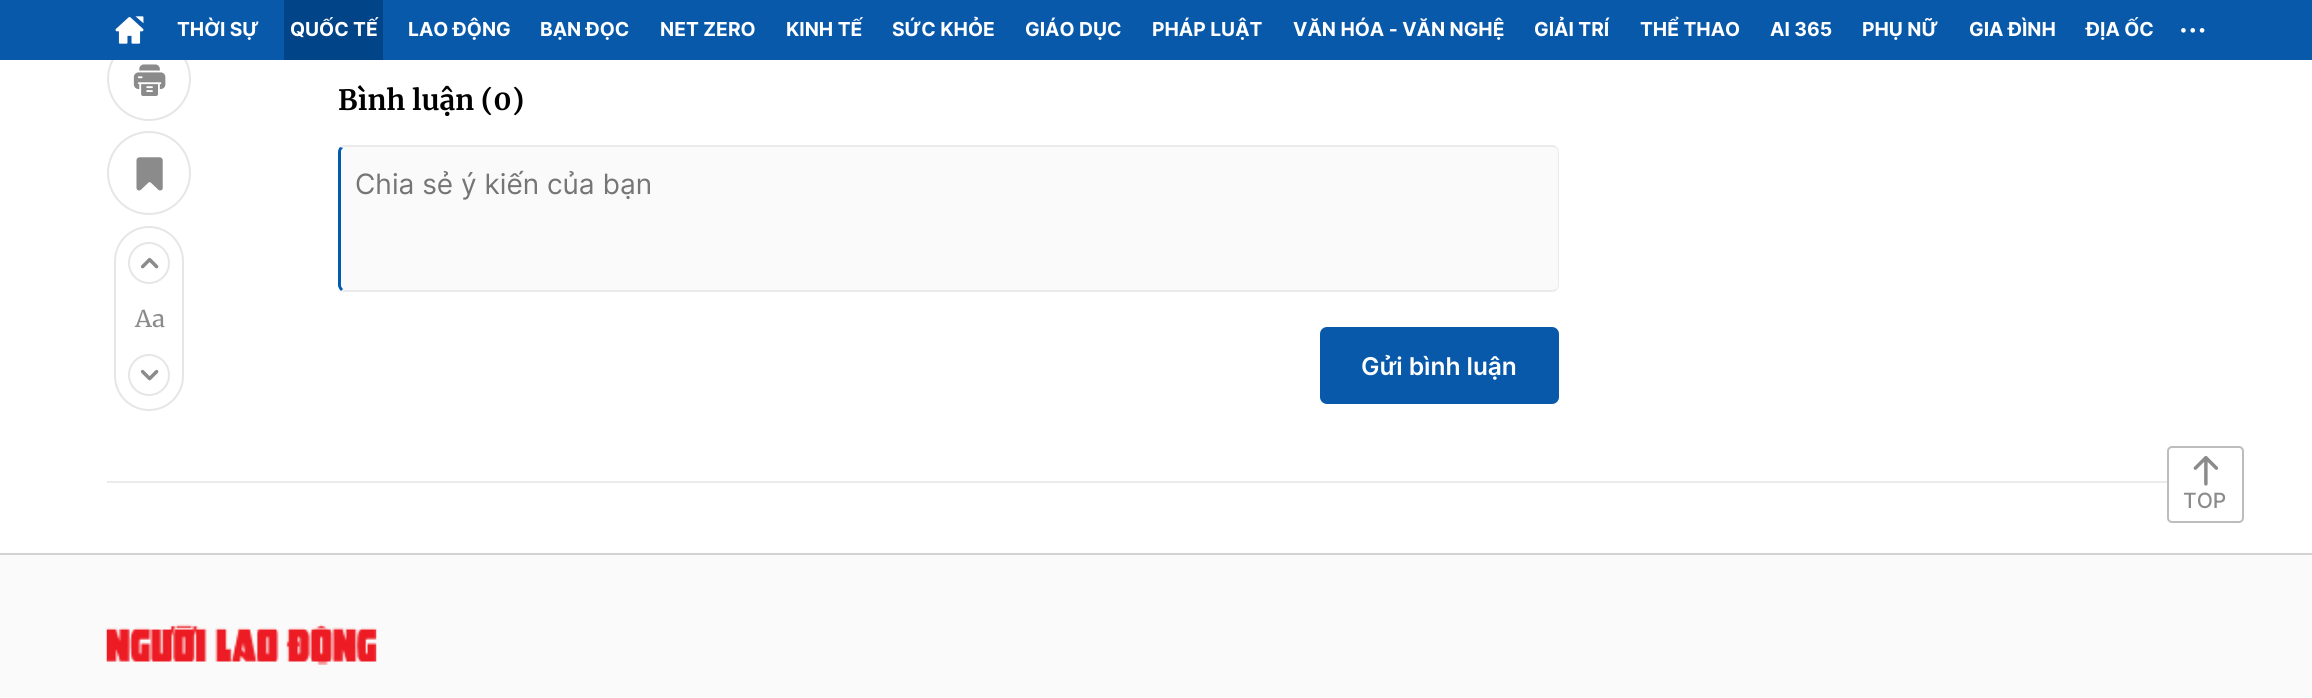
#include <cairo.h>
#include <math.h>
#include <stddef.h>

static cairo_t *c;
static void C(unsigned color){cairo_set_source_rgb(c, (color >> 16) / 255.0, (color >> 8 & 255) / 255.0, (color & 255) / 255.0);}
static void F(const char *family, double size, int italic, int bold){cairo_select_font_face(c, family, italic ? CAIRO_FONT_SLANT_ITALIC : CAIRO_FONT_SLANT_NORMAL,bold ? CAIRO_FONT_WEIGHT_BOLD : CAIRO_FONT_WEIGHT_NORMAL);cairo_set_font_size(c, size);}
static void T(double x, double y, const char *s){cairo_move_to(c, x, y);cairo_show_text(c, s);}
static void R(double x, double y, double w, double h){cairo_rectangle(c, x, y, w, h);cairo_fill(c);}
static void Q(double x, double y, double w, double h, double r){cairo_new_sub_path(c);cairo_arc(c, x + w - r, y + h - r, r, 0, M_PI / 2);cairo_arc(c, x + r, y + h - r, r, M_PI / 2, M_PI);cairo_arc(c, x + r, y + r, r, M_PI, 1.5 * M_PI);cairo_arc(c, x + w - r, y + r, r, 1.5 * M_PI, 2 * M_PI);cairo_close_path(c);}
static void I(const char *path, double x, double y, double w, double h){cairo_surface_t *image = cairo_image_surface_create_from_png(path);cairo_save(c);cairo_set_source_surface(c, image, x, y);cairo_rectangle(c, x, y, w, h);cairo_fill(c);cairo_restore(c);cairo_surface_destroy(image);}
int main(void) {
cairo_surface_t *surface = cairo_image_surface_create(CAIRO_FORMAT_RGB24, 2312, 698);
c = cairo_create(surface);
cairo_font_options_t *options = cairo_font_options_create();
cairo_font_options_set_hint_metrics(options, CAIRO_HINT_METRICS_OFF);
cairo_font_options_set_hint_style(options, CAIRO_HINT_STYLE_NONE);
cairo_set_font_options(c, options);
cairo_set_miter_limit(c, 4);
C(0xffffff);
cairo_paint(c);
cairo_arc(c,149,79,41,0,2 * M_PI);
C(0xe6e6e6);
cairo_stroke(c);
C(0x0959ab);
R(0,0,2312,60);
I("1.png",115,16,29,28);
F("Inter",19.25,0,1);
C(0xffffff);
T(177,36,"THỜI SỰ");
C(0x024488);
R(284,0,99,60);
C(0xffffff);
T(290,36,"QUỐC TẾ");
T(408,36,"LAO ĐỘNG");
T(540,36,"BẠN ĐỌC");
T(660,36,"NET ZERO");
T(786,36,"KINH TẾ");
T(892,36,"SỨC KHỎE");
T(1025,36,"GIÁO DỤC");
T(1152,36,"PHÁP LUẬT");
T(1293,36,"VĂN HÓA - VĂN NGHỆ");
T(1534,36,"GIẢI TRÍ");
T(1640,36,"THỂ THAO");
T(1770,36,"AI 365");
T(1862,36,"PHỤ NỮ");
T(1969,36,"GIA ĐÌNH");
T(2086,36,"ĐỊA ỐC");
I("2.png",2181,28,24,5);
C(0xebebeb);
R(107,481,2060,2);
I("3.png",133,64,33,32);
cairo_arc(c,149,173,41,0,2 * M_PI);
C(0xe6e6e6);
cairo_stroke(c);
I("4.png",136,157,27,34);
Q(115,227,68,183,34);
cairo_stroke(c);
cairo_arc(c,149,263,20,0,2 * M_PI);
cairo_stroke(c);
I("5.png",140,257,19,12);
I("6.png",134,309,31,19);
cairo_arc(c,149,375,20,0,2 * M_PI);
cairo_stroke(c);
I("7.png",140,369,19,12);
F("Merriweather",28,0,1);
C(0x000000);
T(338,110,"Bình luận (0)");
C(0xfafafa);
cairo_new_path(c);
cairo_move_to(c,345,147);
cairo_line_to(c,1552,147);
cairo_curve_to(c,1555,147,1558,149,1558,152);
cairo_line_to(c,1558,285);
cairo_curve_to(c,1558,288,1555,290,1552,290);
cairo_line_to(c,345,290);
cairo_curve_to(c,343,290,341,288,341,285);
cairo_line_to(c,341,152);
cairo_curve_to(c,341,149,343,147,345,147);
cairo_close_path(c);
cairo_fill(c);
C(0xe9ebec);
cairo_new_path(c);
cairo_move_to(c,345,147);
cairo_line_to(c,343,148);
cairo_line_to(c,340,147);
cairo_line_to(c,343,145);
cairo_line_to(c,1554,145);
cairo_line_to(c,1557,147);
cairo_line_to(c,1556,148);
cairo_curve_to(c,1555,148,1554,147,1552,147);
cairo_close_path(c);
cairo_fill(c);
cairo_new_path(c);
cairo_move_to(c,1557,147);
cairo_curve_to(c,1558,148,1559,150,1559,152);
cairo_line_to(c,1559,285);
cairo_curve_to(c,1559,287,1558,289,1557,290);
cairo_line_to(c,1556,289);
cairo_curve_to(c,1557,288,1558,287,1558,285);
cairo_line_to(c,1558,152);
cairo_curve_to(c,1558,150,1557,149,1556,148);
cairo_close_path(c);
cairo_fill(c);
cairo_new_path(c);
cairo_move_to(c,1557,290);
cairo_curve_to(c,1556,291,1554,292,1552,292);
cairo_line_to(c,345,292);
cairo_curve_to(c,343,292,342,292,341,291);
cairo_line_to(c,343,289);
cairo_line_to(c,345,290);
cairo_line_to(c,1552,290);
cairo_line_to(c,1556,289);
cairo_close_path(c);
cairo_fill(c);
C(0x005bb2);
cairo_new_path(c);
cairo_move_to(c,341,291);
cairo_curve_to(c,339,289,338,287,338,285);
cairo_line_to(c,338,152);
cairo_curve_to(c,338,150,339,148,340,147);
cairo_line_to(c,343,148);
cairo_curve_to(c,342,149,341,150,341,151);
cairo_line_to(c,341,286);
cairo_line_to(c,342,288);
cairo_line_to(c,343,289);
cairo_close_path(c);
cairo_fill(c);
F("Inter",28,0,0);
C(0x757575);
T(355,194,"Chia sẻ ý kiến của bạn");
C(0x0959ab);
Q(1320,327,239,77,7);
cairo_fill(c);
F("Inter SemiBold",24.5,0,0);
C(0xffffff);
T(1361,375,"Gửi bình luận");
Q(2168,447,75,75,4);
C(0xbdbdbd);
cairo_stroke(c);
I("8.png",2193,455,26,31);
F("Inter Medium",21,0,0);
C(0x8b8b8b);
T(2183,508,"TOP");
C(0xfafafa);
R(0,555,2312,143);
C(0xd2d2d2);
R(0,553,2312,2);
I("9.png",106,624,271,41);
cairo_surface_write_to_png(surface, "o.png");
cairo_font_options_destroy(options);
cairo_destroy(c);
cairo_surface_destroy(surface);
return 0;
}
